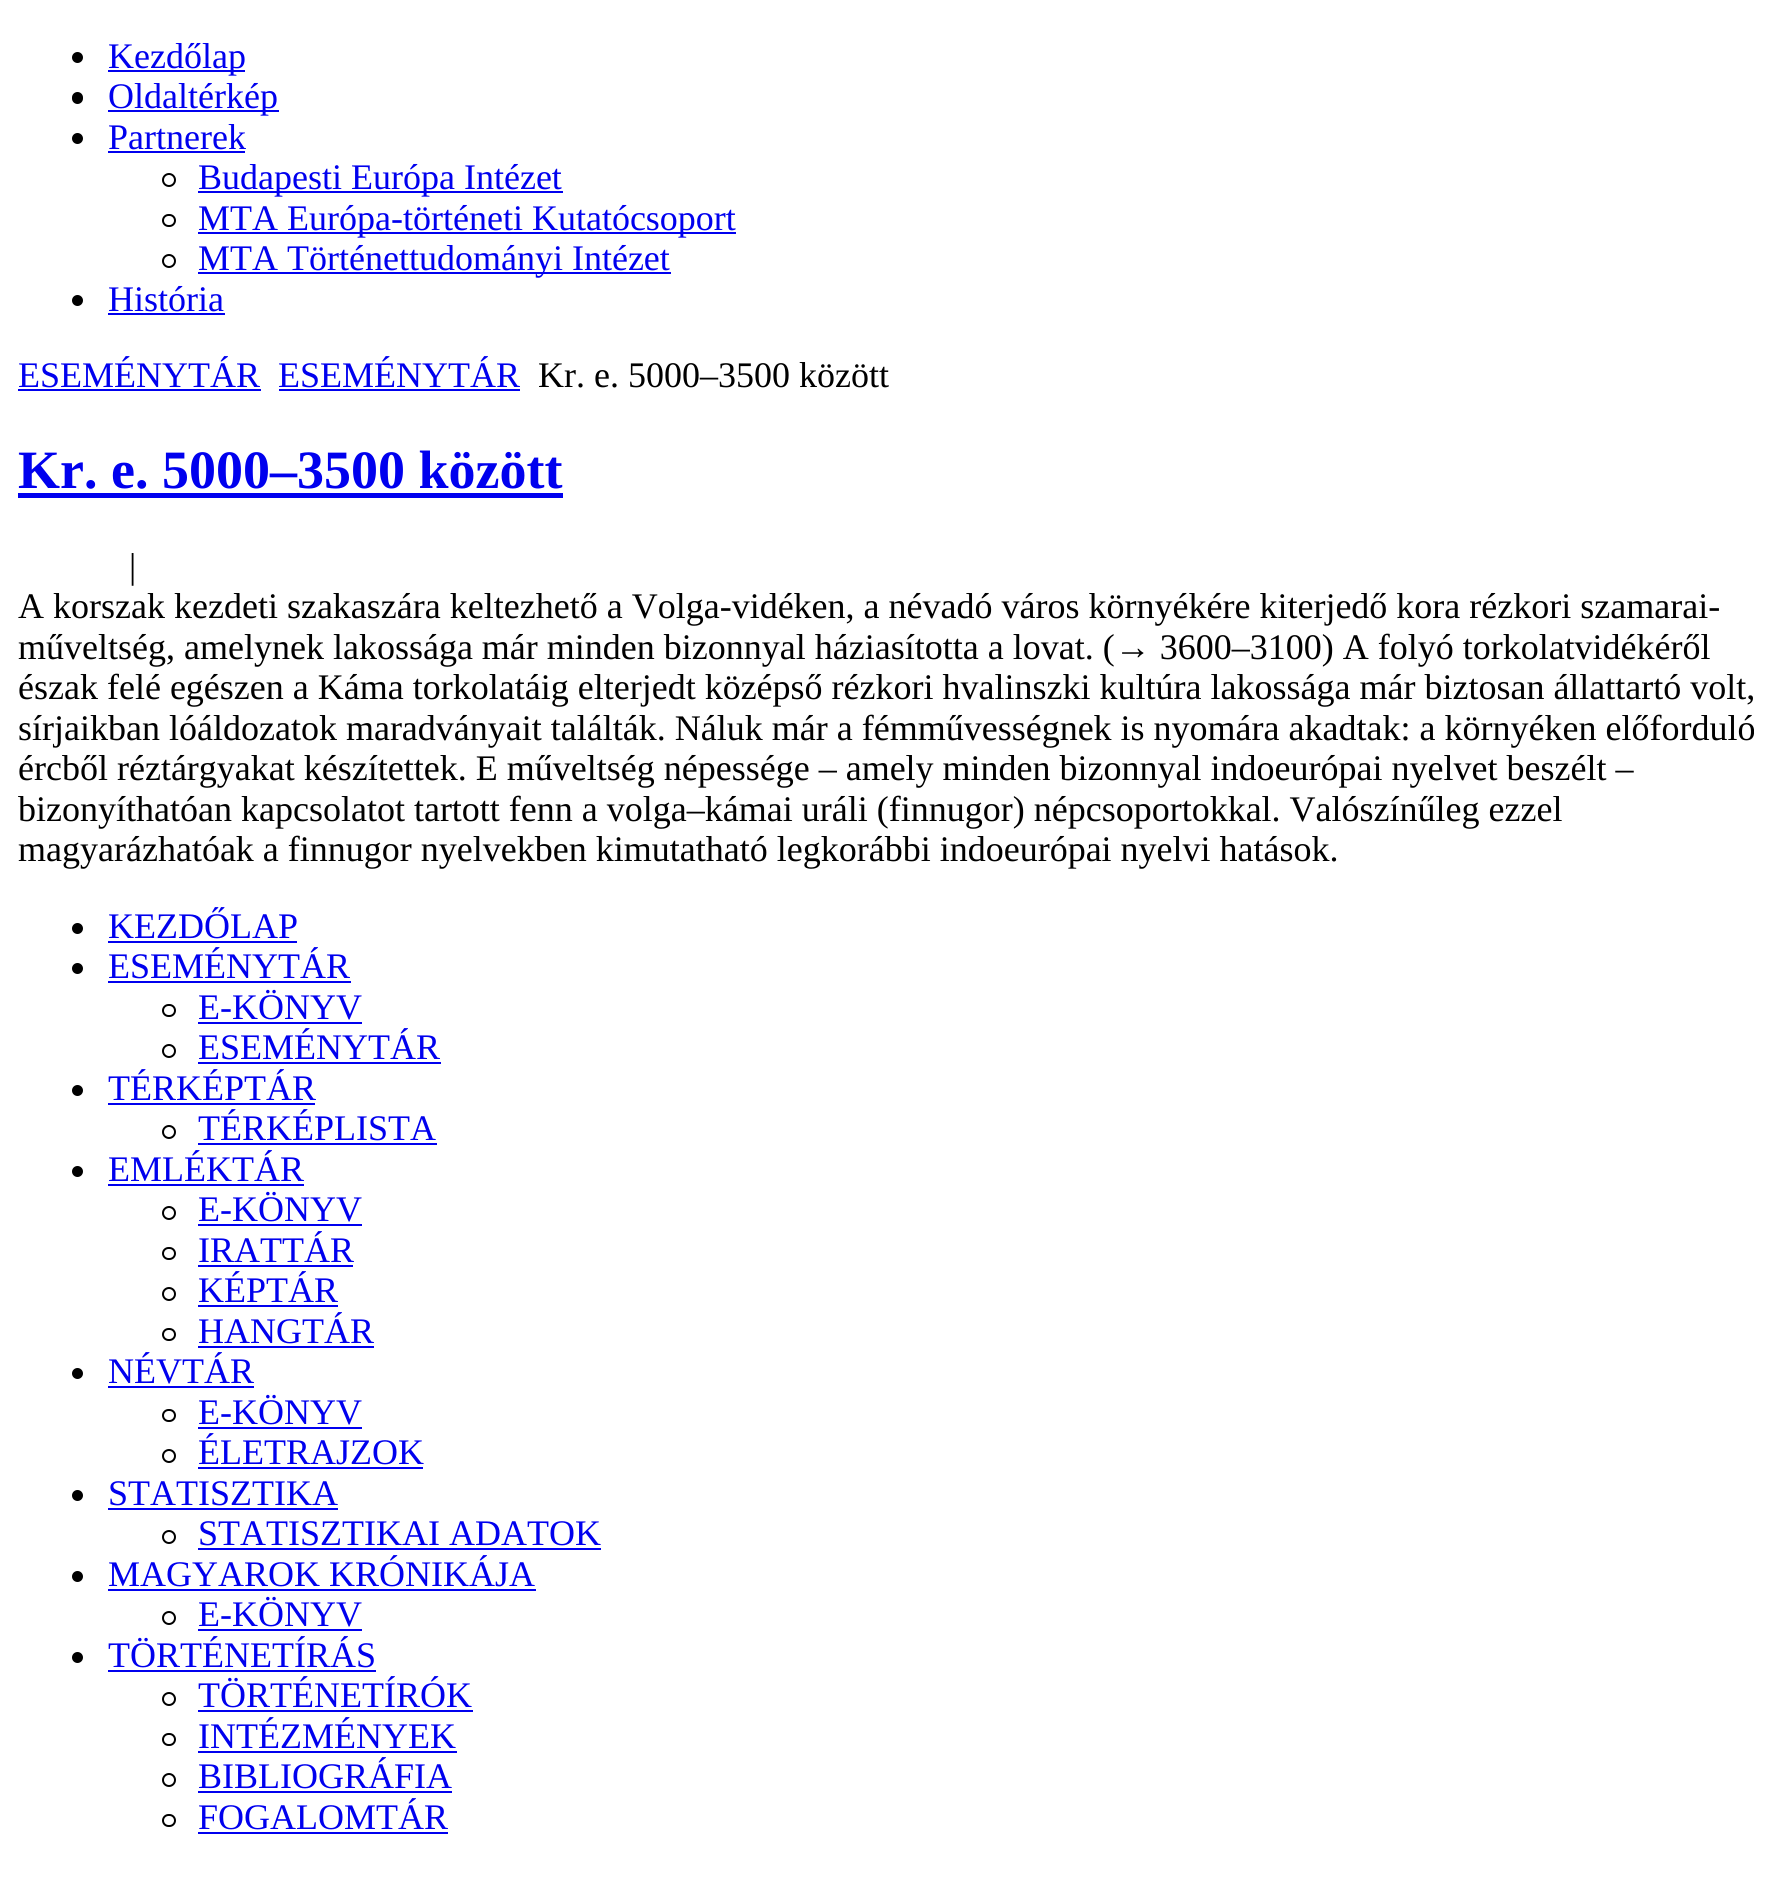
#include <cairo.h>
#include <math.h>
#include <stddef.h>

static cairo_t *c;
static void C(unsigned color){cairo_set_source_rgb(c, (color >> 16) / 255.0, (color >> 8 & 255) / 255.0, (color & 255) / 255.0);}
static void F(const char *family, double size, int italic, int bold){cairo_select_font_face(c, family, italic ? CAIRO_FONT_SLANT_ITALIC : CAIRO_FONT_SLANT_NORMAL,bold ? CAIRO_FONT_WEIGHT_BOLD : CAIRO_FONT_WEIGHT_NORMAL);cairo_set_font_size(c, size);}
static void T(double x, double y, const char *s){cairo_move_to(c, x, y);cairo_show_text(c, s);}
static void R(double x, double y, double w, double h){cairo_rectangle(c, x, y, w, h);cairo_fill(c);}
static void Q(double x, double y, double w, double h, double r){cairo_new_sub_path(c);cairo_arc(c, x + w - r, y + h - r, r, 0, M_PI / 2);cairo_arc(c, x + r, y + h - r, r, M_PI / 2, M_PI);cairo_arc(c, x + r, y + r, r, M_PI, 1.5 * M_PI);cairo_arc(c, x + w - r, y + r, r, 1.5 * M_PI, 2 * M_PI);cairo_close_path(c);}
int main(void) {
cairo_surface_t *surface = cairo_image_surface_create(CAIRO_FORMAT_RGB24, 1788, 1879);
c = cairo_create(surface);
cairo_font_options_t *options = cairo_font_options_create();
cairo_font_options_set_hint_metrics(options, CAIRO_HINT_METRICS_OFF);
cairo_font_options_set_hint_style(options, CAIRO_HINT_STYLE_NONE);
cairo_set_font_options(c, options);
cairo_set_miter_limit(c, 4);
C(0xffffff);
cairo_paint(c);
C(0x000000);
cairo_arc(c,77.5,57.5,5.5,0,2 * M_PI);
cairo_fill(c);
C(0x0000ee);
R(108,70,137,2);
F("Liberation Serif",36,0,0);
T(108,68,"Kezdőlap");
C(0x000000);
Q(72,92,11,12,5.5);
cairo_fill(c);
C(0x0000ee);
R(108,110,171,2);
T(108,108,"Oldaltérkép");
C(0x000000);
cairo_new_path(c);
cairo_arc(c,77.5,138.5,5.5,0,2 * M_PI);
cairo_fill(c);
C(0x0000ee);
T(108,149,"Partnerek");
R(108,151,137,2);
cairo_new_path(c);
cairo_arc(c,169,180,6,0,2 * M_PI);
C(0x000000);
cairo_stroke(c);
C(0x0000ee);
R(198,191,365,2);
T(198,189,"Budapesti Európa Intézet");
Q(163,215,12,11,5.5);
C(0x000000);
cairo_stroke(c);
C(0x0000ee);
R(198,232,538,2);
T(198,230,"MTA Európa-történeti Kutatócsoport");
cairo_new_path(c);
cairo_arc(c,169,261,6,0,2 * M_PI);
C(0x000000);
cairo_stroke(c);
C(0x0000ee);
R(198,272,473,2);
T(198,270,"MTA Történettudományi Intézet");
C(0x000000);
cairo_new_path(c);
cairo_arc(c,77.5,300.5,5.5,0,2 * M_PI);
cairo_fill(c);
C(0x0000ee);
T(108,311,"História");
R(108,313,117,2);
T(18,387,"ESEMÉNYTÁR");
R(18,389,243,2);
T(278,387,"ESEMÉNYTÁR");
R(279,389,241,2);
C(0x000000);
T(538,387,"Kr. e. 5000–3500 között");
F("Liberation Serif",54,0,1);
C(0x0000ee);
T(18,488,"Kr. e. 5000–3500 között");
R(18,493,545,5);
F("Liberation Serif",36,0,0);
C(0x000000);
T(129,578,"|");
T(18,618,"A korszak kezdeti szakaszára keltezhető a Volga-vidéken, a névadó város környékére kiterjedő kora rézkori szamarai-");
T(18,659,"műveltség, amelynek lakossága már minden bizonnyal háziasította a lovat. (→ 3600–3100) A folyó torkolatvidékéről");
T(18,699,"észak felé egészen a Káma torkolatáig elterjedt középső rézkori hvalinszki kultúra lakossága már biztosan állattartó volt,");
T(18,740,"sírjaikban lóáldozatok maradványait találták. Náluk már a fémművességnek is nyomára akadtak: a környéken előforduló");
T(18,780,"ércből réztárgyakat készítettek. E műveltség népessége – amely minden bizonnyal indoeurópai nyelvet beszélt –");
T(18,821,"bizonyíthatóan kapcsolatot tartott fenn a volga–kámai uráli (finnugor) népcsoportokkal. Valószínűleg ezzel");
T(18,861,"magyarázhatóak a finnugor nyelvekben kimutatható legkorábbi indoeurópai nyelvi hatások.");
cairo_new_path(c);
cairo_arc(c,77.5,928.5,5.5,0,2 * M_PI);
cairo_fill(c);
C(0x0000ee);
T(108,938,"KEZDŐLAP");
R(108,941,189,2);
C(0x000000);
cairo_new_path(c);
cairo_arc(c,77.5,968.5,5.5,0,2 * M_PI);
cairo_fill(c);
C(0x0000ee);
T(108,978,"ESEMÉNYTÁR");
R(108,981,243,2);
Q(163,1005,12,11,5.5);
C(0x000000);
cairo_stroke(c);
C(0x0000ee);
T(198,1019,"E-KÖNYV");
R(198,1022,164,2);
cairo_new_path(c);
cairo_arc(c,169,1051,6,0,2 * M_PI);
C(0x000000);
cairo_stroke(c);
C(0x0000ee);
T(198,1059,"ESEMÉNYTÁR");
R(198,1062,243,2);
C(0x000000);
cairo_new_path(c);
cairo_arc(c,77.5,1090.5,5.5,0,2 * M_PI);
cairo_fill(c);
C(0x0000ee);
T(108,1100,"TÉRKÉPTÁR");
R(108,1103,207,2);
cairo_new_path(c);
cairo_arc(c,169,1132,6,0,2 * M_PI);
C(0x000000);
cairo_stroke(c);
C(0x0000ee);
T(198,1140,"TÉRKÉPLISTA");
R(198,1143,239,2);
C(0x000000);
cairo_new_path(c);
cairo_arc(c,77.5,1171.5,5.5,0,2 * M_PI);
cairo_fill(c);
C(0x0000ee);
T(108,1181,"EMLÉKTÁR");
R(108,1184,196,2);
cairo_new_path(c);
cairo_arc(c,169,1213,6,0,2 * M_PI);
C(0x000000);
cairo_stroke(c);
C(0x0000ee);
T(198,1221,"E-KÖNYV");
R(198,1224,164,2);
Q(163,1248,12,11,5.5);
C(0x000000);
cairo_stroke(c);
C(0x0000ee);
T(198,1262,"IRATTÁR");
R(198,1265,155,2);
cairo_new_path(c);
cairo_arc(c,169,1294,6,0,2 * M_PI);
C(0x000000);
cairo_stroke(c);
C(0x0000ee);
T(198,1302,"KÉPTÁR");
R(198,1305,140,2);
Q(163,1329,12,11,5.5);
C(0x000000);
cairo_stroke(c);
C(0x0000ee);
T(198,1343,"HANGTÁR");
R(198,1346,176,2);
C(0x000000);
cairo_new_path(c);
cairo_arc(c,77.5,1373.5,5.5,0,2 * M_PI);
cairo_fill(c);
C(0x0000ee);
T(108,1383,"NÉVTÁR");
R(108,1386,146,2);
Q(163,1410,12,11,5.5);
C(0x000000);
cairo_stroke(c);
C(0x0000ee);
T(198,1424,"E-KÖNYV");
R(198,1427,164,2);
cairo_new_path(c);
cairo_arc(c,169,1456,6,0,2 * M_PI);
C(0x000000);
cairo_stroke(c);
C(0x0000ee);
T(198,1464,"ÉLETRAJZOK");
R(198,1467,225,2);
C(0x000000);
cairo_new_path(c);
cairo_arc(c,77.5,1495.5,5.5,0,2 * M_PI);
cairo_fill(c);
C(0x0000ee);
T(108,1505,"STATISZTIKA");
R(108,1508,230,2);
cairo_new_path(c);
cairo_arc(c,169,1537,6,0,2 * M_PI);
C(0x000000);
cairo_stroke(c);
C(0x0000ee);
T(198,1545,"STATISZTIKAI ADATOK");
R(198,1548,403,2);
C(0x000000);
cairo_new_path(c);
cairo_arc(c,77.5,1576.5,5.5,0,2 * M_PI);
cairo_fill(c);
C(0x0000ee);
T(108,1586,"MAGYAROK KRÓNIKÁJA");
R(108,1589,428,2);
cairo_new_path(c);
cairo_arc(c,169,1618,6,0,2 * M_PI);
C(0x000000);
cairo_stroke(c);
C(0x0000ee);
T(198,1626,"E-KÖNYV");
R(198,1629,164,2);
C(0x000000);
cairo_new_path(c);
cairo_arc(c,77.5,1657.5,5.5,0,2 * M_PI);
cairo_fill(c);
C(0x0000ee);
T(108,1667,"TÖRTÉNETÍRÁS");
R(108,1670,268,2);
cairo_new_path(c);
cairo_arc(c,169,1699,6,0,2 * M_PI);
C(0x000000);
cairo_stroke(c);
C(0x0000ee);
T(198,1707,"TÖRTÉNETÍRÓK");
R(198,1710,275,2);
Q(163,1734,12,11,5.5);
C(0x000000);
cairo_stroke(c);
C(0x0000ee);
T(198,1748,"INTÉZMÉNYEK");
R(198,1751,259,2);
cairo_new_path(c);
cairo_arc(c,169,1780,6,0,2 * M_PI);
C(0x000000);
cairo_stroke(c);
C(0x0000ee);
T(198,1788,"BIBLIOGRÁFIA");
R(198,1791,254,2);
Q(163,1815,12,11,5.5);
C(0x000000);
cairo_stroke(c);
C(0x0000ee);
T(198,1829,"FOGALOMTÁR");
R(198,1832,250,2);
cairo_surface_write_to_png(surface, "o.png");
cairo_font_options_destroy(options);
cairo_destroy(c);
cairo_surface_destroy(surface);
return 0;
}
